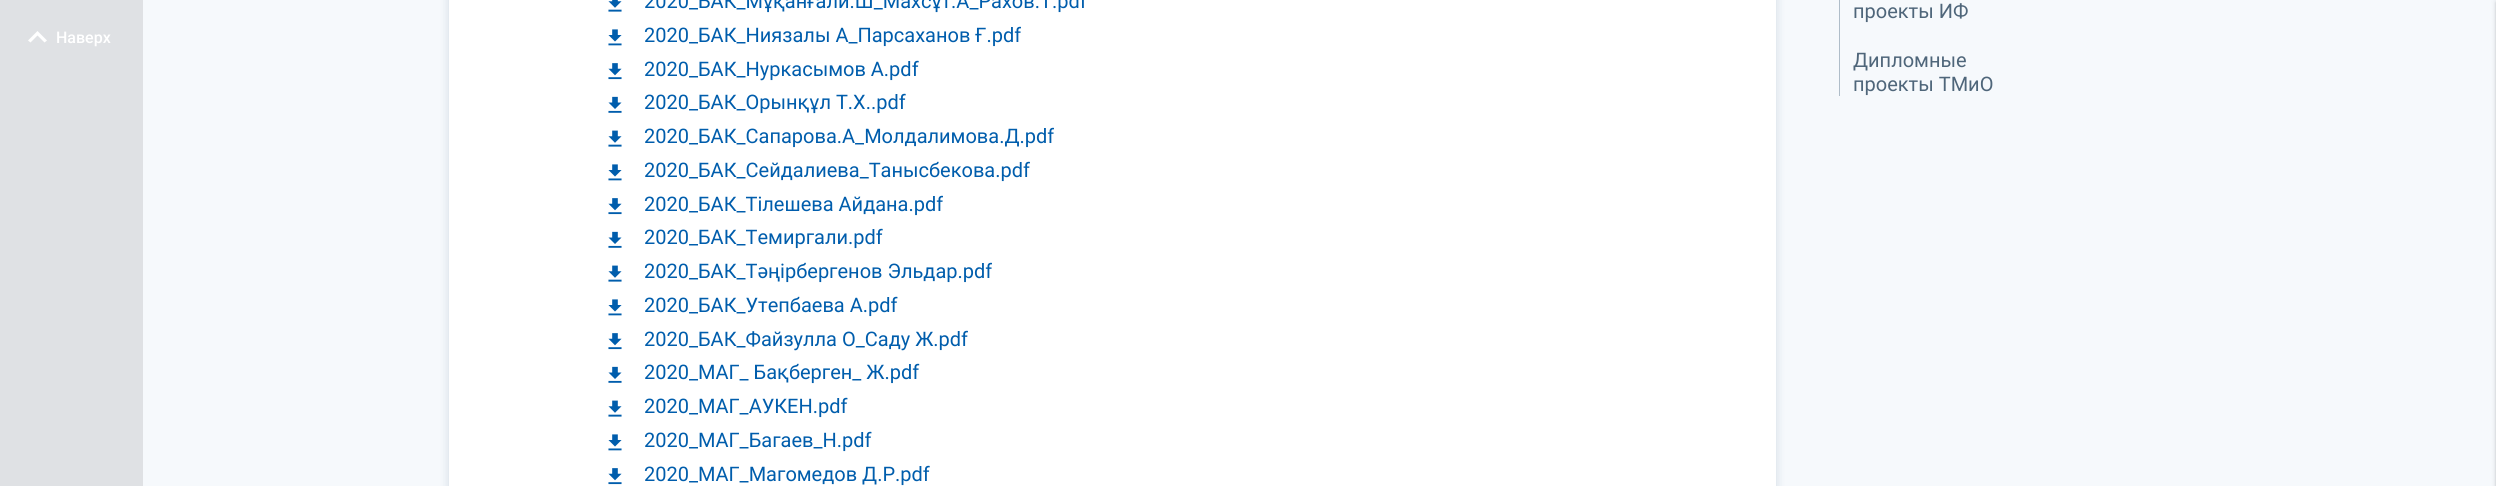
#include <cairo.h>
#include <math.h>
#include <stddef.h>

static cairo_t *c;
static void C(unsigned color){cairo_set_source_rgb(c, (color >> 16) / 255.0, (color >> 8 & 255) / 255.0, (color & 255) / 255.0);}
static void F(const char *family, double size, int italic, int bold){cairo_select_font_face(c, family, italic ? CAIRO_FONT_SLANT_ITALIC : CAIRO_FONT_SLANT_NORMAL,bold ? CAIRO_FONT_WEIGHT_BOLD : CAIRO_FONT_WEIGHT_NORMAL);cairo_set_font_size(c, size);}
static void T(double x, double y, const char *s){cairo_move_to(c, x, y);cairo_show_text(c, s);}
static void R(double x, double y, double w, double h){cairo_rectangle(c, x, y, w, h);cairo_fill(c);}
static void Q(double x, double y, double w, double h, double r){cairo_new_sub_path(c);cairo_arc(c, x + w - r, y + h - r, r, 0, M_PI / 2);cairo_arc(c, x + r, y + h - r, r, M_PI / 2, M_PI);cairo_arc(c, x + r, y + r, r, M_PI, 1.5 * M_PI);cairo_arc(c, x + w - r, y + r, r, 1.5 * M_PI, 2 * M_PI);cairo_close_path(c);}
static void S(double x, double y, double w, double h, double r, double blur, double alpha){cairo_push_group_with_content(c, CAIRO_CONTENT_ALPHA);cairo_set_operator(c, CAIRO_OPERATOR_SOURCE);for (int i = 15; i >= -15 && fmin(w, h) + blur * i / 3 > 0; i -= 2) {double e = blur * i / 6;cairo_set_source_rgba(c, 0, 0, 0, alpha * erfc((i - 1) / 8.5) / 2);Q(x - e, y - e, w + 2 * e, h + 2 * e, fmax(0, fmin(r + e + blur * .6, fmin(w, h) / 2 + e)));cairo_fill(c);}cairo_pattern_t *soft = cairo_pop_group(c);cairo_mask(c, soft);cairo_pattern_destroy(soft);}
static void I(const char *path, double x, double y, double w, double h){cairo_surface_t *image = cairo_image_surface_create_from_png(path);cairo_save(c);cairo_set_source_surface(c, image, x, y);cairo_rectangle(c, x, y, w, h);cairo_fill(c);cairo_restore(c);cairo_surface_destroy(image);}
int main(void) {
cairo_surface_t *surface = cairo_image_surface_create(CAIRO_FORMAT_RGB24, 2496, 486);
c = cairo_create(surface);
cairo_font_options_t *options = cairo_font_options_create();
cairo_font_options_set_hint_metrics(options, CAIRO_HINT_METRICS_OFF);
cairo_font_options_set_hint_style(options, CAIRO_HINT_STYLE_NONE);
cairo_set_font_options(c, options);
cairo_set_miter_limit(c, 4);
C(0xf6f9fc);
cairo_paint(c);
C(0xdfe1e4);
R(0,0,143,486);
C(0xffffff);
cairo_new_path(c);
cairo_move_to(c,30.5,42.5);
cairo_line_to(c,37.5,35.5);
cairo_line_to(c,44.5,42.5);
cairo_line_to(c,47,40.5);
cairo_line_to(c,37.5,31);
cairo_line_to(c,28,40.5);
cairo_close_path(c);
cairo_fill(c);
F("Roboto Medium",16,0,0);
T(56,43,"Наверх");
C(0x103e65);
S(449,-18,1327,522,2.5,5,.16);
C(0xffffff);
R(449,0,1327,486);
I("1.png",608,0,14,12);
F("Roboto",20,0,0);
C(0x005dac);
T(644,8,"2020_БАК_Мұқанғали.Ш_Махсұт.А_Рахов.Т.pdf");
I("2.png",608,29,14,17);
T(644,42,"2020_БАК_Ниязалы А_Парсаханов Ғ.pdf");
I("3.png",608,63,14,17);
T(644,76,"2020_БАК_Нуркасымов А.pdf");
I("4.png",608,96,14,17);
T(644,109,"2020_БАК_Орынқұл Т.Х..pdf");
I("5.png",608,130,14,17);
T(644,143,"2020_БАК_Сапарова.А_Молдалимова.Д.pdf");
I("2.png",608,164,14,17);
T(644,177,"2020_БАК_Сейдалиева_Танысбекова.pdf");
I("3.png",608,198,14,17);
T(644,211,"2020_БАК_Тілешева Айдана.pdf");
I("4.png",608,231,14,17);
T(644,244,"2020_БАК_Темиргали.pdf");
I("5.png",608,265,14,17);
T(644,278,"2020_БАК_Тәңірбергенов Эльдар.pdf");
I("2.png",608,299,14,17);
T(644,312,"2020_БАК_Утепбаева А.pdf");
I("3.png",608,333,14,17);
T(644,346,"2020_БАК_Файзулла О_Саду Ж.pdf");
I("4.png",608,366,14,17);
T(644,379,"2020_МАГ_ Бақберген_ Ж.pdf");
I("5.png",608,400,14,17);
T(644,413,"2020_МАГ_АУКЕН.pdf");
I("2.png",608,434,14,17);
T(644,447,"2020_МАГ_Багаев_Н.pdf");
I("3.png",608,468,14,17);
T(644,481,"2020_МАГ_Магомедов Д.Р.pdf");
C(0xafbdc9);
R(1839,0,1,96);
C(0x4f667a);
T(1853,18,"проекты ИФ");
T(1853,67,"Дипломные");
T(1853,91,"проекты ТМиО");
C(0x000000);
S(2496,1,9,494,0,3,.12);
S(2496,3,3,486,0,1,.14);
cairo_surface_write_to_png(surface, "o.png");
cairo_font_options_destroy(options);
cairo_destroy(c);
cairo_surface_destroy(surface);
return 0;
}
